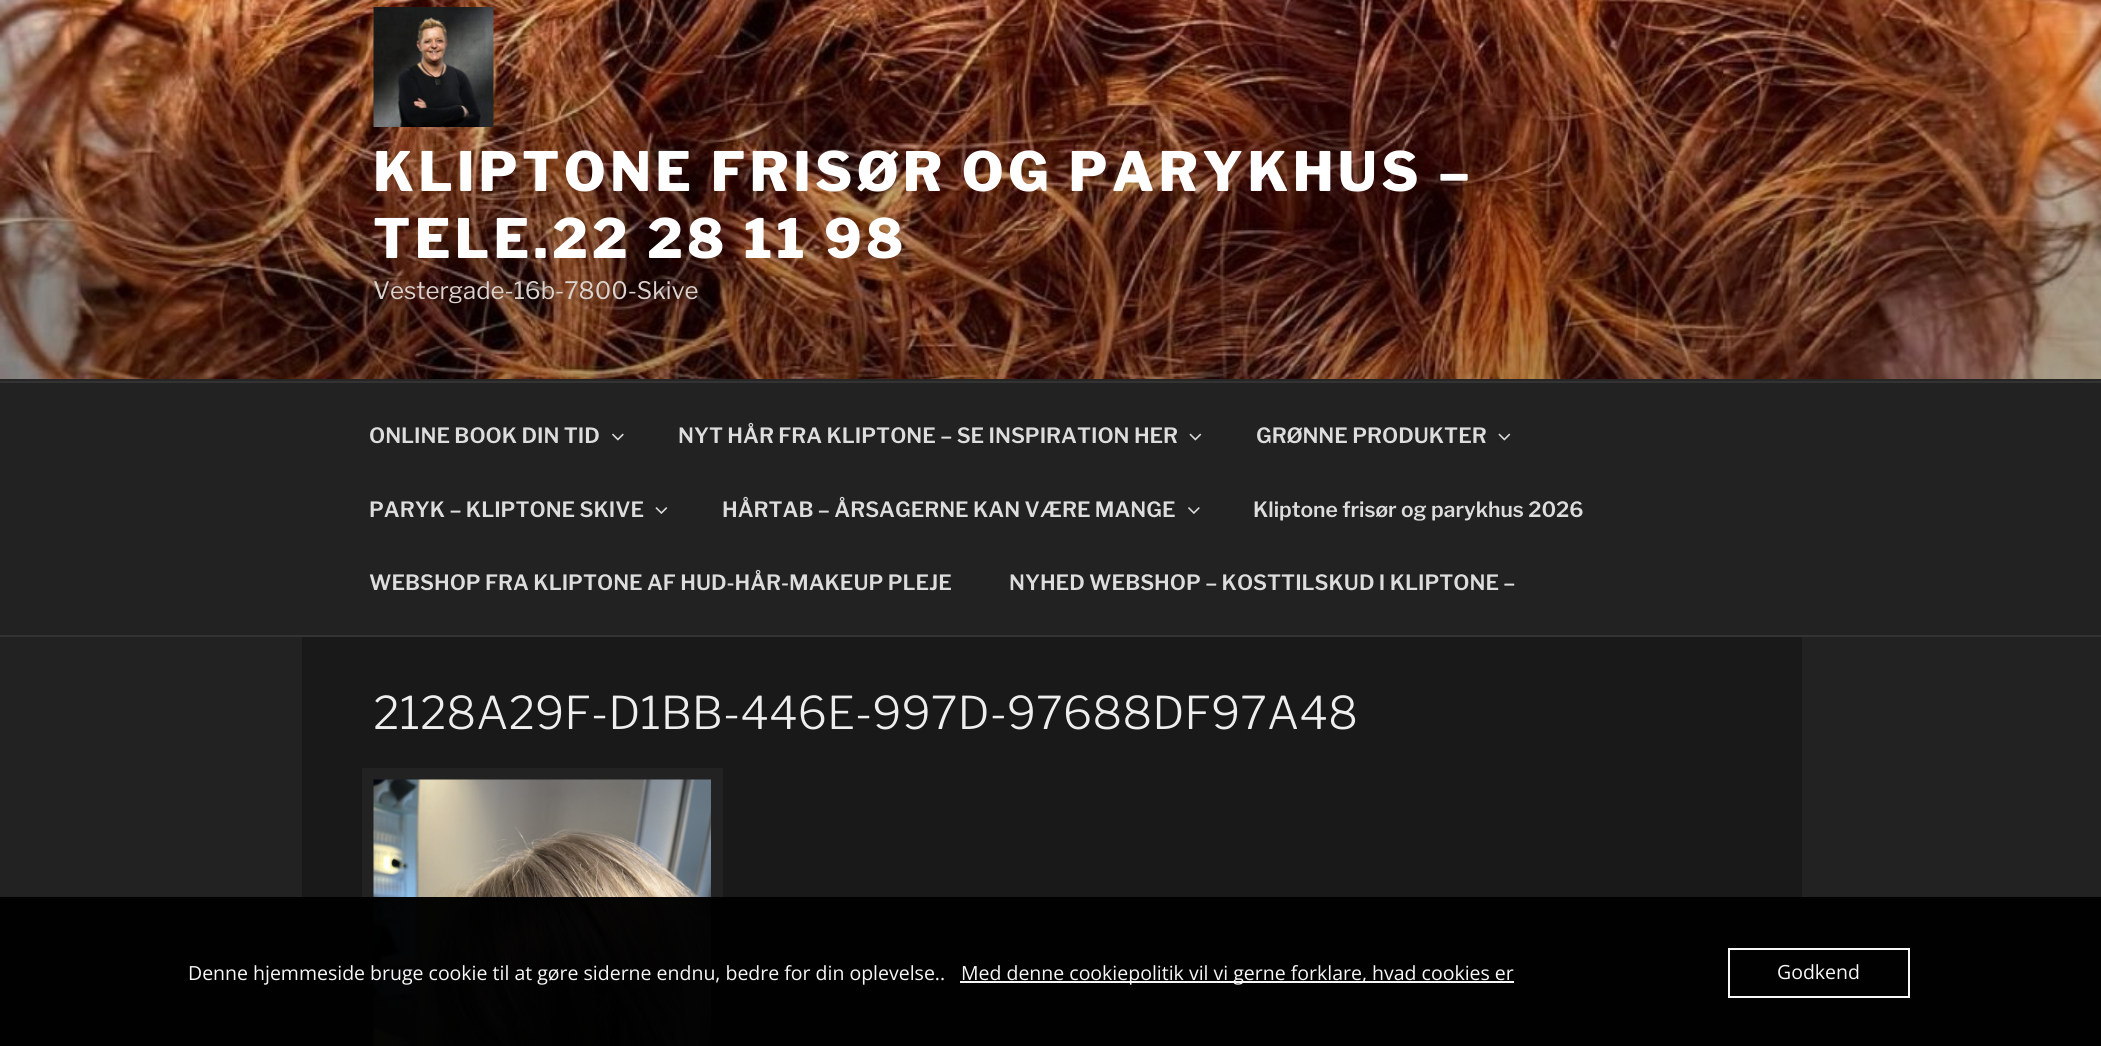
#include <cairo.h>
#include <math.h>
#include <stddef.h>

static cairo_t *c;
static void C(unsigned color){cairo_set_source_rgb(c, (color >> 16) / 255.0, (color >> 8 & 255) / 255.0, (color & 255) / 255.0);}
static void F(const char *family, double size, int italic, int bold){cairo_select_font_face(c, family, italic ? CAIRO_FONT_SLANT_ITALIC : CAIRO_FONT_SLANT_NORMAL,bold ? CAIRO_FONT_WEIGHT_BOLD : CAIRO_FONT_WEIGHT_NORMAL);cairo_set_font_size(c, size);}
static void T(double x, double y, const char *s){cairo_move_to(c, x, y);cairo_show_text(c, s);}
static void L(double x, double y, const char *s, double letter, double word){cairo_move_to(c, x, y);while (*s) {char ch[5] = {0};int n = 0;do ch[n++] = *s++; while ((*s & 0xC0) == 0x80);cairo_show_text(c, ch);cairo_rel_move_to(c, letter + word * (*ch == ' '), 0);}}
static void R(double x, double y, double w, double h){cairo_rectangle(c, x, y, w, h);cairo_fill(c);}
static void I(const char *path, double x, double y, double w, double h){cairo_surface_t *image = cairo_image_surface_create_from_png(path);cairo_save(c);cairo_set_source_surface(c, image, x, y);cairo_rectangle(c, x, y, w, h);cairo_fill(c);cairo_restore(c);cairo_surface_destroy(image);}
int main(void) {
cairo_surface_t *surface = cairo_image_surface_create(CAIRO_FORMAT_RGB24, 2101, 1046);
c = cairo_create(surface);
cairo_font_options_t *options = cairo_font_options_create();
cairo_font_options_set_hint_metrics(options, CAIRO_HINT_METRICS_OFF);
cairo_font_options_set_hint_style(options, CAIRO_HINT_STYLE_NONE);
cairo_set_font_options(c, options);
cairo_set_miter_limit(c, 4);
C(0x222222);
cairo_paint(c);
C(0x262626);
R(0,379,2101,2);
I("1.png",0,0,2101,379);
I("2.png",373,7,121,120);
F("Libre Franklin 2 Thin",54,0,0);
C(0xffffff);
L(373,191,"KLIPTONE FRISØR OG PARYKHUS –",4.3,0);
L(373,258,"TELE.22 28 11 98",4.3,0);
F("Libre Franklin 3 Thin",24,0,0);
C(0xdad3d0);
T(373,299,"Vestergade-16b-7800-Skive");
C(0x333333);
R(0,381,2101,2);
R(0,635,2101,2);
F("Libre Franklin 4 Thin",21,0,0);
C(0xdddddd);
T(369,443,"ONLINE BOOK DIN TID");
I("3.png",612,433,12,8);
T(678,443,"NYT HÅR FRA KLIPTONE – SE INSPIRATION HER");
I("4.png",1189,433,13,8);
T(1256,443,"GRØNNE PRODUKTER");
I("4.png",1498,433,13,8);
T(369,517,"PARYK – KLIPTONE SKIVE");
I("5.png",655,507,13,7);
T(722,517,"HÅRTAB – ÅRSAGERNE KAN VÆRE MANGE");
I("6.png",1188,507,12,7);
T(1253,517,"Kliptone frisør og parykhus 2026");
T(369,590,"WEBSHOP FRA KLIPTONE AF HUD-HÅR-MAKEUP PLEJE");
T(1009,590,"NYHED WEBSHOP – KOSTTILSKUD I KLIPTONE –");
C(0x191919);
R(302,637,1500,409);
F("Libre Franklin Thin",45,0,0);
C(0xeeeeee);
T(373,729,"2128A29F-D1BB-446E-997D-97688DF97A48");
cairo_rectangle(c,368,774,349,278);
C(0x222222);
cairo_set_line_width(c,12);
cairo_stroke(c);
I("7.png",373,779,338,267);
cairo_set_source_rgba(c,0,0,0,0.97);
R(0,897,2101,149);
F("Open Sans",19.5,0,0);
C(0xf7f7f7);
T(188,980,"Denne hjemmeside bruge cookie til at gøre siderne endnu, bedre for din oplevelse..");
C(0xf8f8f8);
R(960,981,554,2);
C(0xf7f7f7);
T(961,980,"Med denne cookiepolitik vil vi gerne forklare, hvad cookies er");
cairo_rectangle(c,1729,949,180,48);
cairo_set_line_width(c,2);
cairo_stroke(c);
T(1777,979,"Godkend");
cairo_surface_write_to_png(surface, "o.png");
cairo_font_options_destroy(options);
cairo_destroy(c);
cairo_surface_destroy(surface);
return 0;
}
